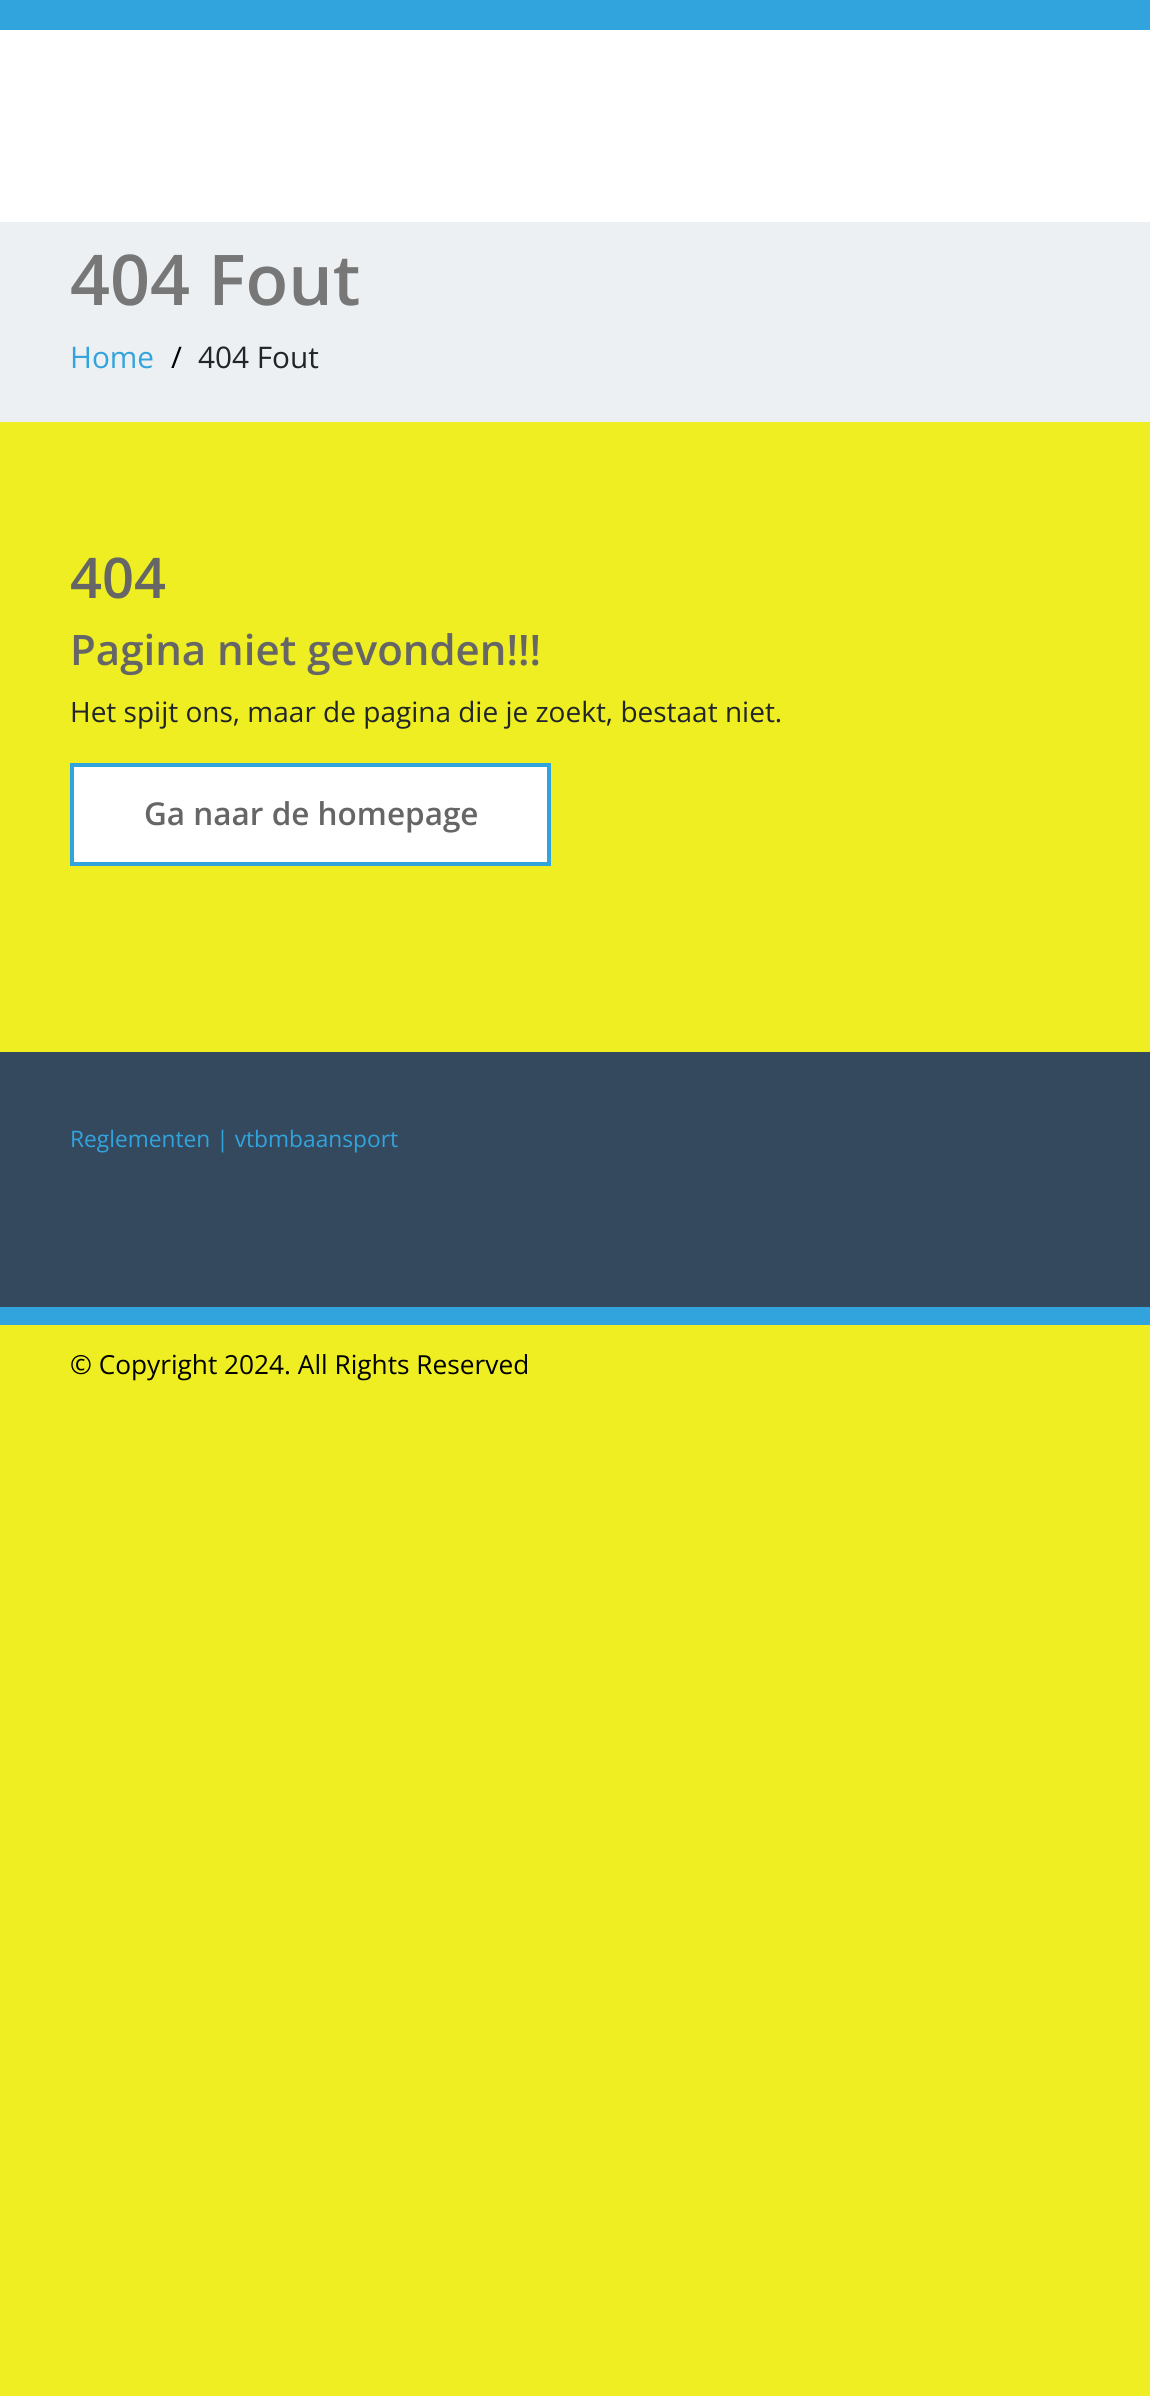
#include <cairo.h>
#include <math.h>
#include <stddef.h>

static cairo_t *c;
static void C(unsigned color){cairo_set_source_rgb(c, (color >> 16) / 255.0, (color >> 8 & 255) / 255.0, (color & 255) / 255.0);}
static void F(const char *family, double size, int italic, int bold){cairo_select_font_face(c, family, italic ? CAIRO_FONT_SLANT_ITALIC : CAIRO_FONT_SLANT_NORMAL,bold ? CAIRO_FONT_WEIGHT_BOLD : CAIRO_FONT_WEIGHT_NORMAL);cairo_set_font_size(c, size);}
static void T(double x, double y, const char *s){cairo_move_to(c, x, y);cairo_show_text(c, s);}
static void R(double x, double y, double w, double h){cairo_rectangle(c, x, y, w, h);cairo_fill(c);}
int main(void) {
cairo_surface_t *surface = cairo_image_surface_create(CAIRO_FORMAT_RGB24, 1150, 2396);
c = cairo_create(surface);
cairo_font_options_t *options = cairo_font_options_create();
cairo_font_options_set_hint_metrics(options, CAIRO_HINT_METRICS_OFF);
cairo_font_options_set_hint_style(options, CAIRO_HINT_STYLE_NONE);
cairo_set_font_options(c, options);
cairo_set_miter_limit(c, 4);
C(0xeeee22);
cairo_paint(c);
C(0x31a3dd);
R(0,0,1150,30);
C(0xffffff);
R(0,30,1150,192);
C(0xedf0f2);
R(0,222,1150,200);
F("Open Sans SemiBold",70,0,0);
C(0x777777);
T(70,305,"404 Fout");
F("Open Sans",29.75,0,0);
C(0x31a3dd);
T(70,368,"Home");
C(0x000000);
T(171,368,"/");
C(0x212529);
T(198,368,"404 Fout");
F("Open Sans SemiBold",56,0,0);
C(0x666666);
T(70,598,"404");
F("Open Sans SemiBold",42,0,0);
T(70,665,"Pagina niet gevonden!!!");
F("Open Sans",28,0,0);
C(0x212529);
T(70,722,"Het spijt ons, maar de pagina die je zoekt, bestaat niet.");
C(0xffffff);
cairo_rectangle(c,72,765,477,99);
cairo_fill_preserve(c);
C(0x31a3dd);
cairo_set_line_width(c,4);
cairo_stroke(c);
F("Open Sans SemiBold",31.5,0,0);
C(0x666666);
T(144,825,"Ga naar de homepage");
C(0x34495e);
R(0,1052,1150,255);
F("Open Sans",22.75,0,0);
C(0x31a3dd);
T(70,1147,"Reglementen | vtbmbaansport");
R(0,1307,1150,18);
F("Open Sans",26.25,0,0);
C(0x000000);
T(70,1374,"© Copyright 2024. All Rights Reserved");
cairo_surface_write_to_png(surface, "o.png");
cairo_font_options_destroy(options);
cairo_destroy(c);
cairo_surface_destroy(surface);
return 0;
}
